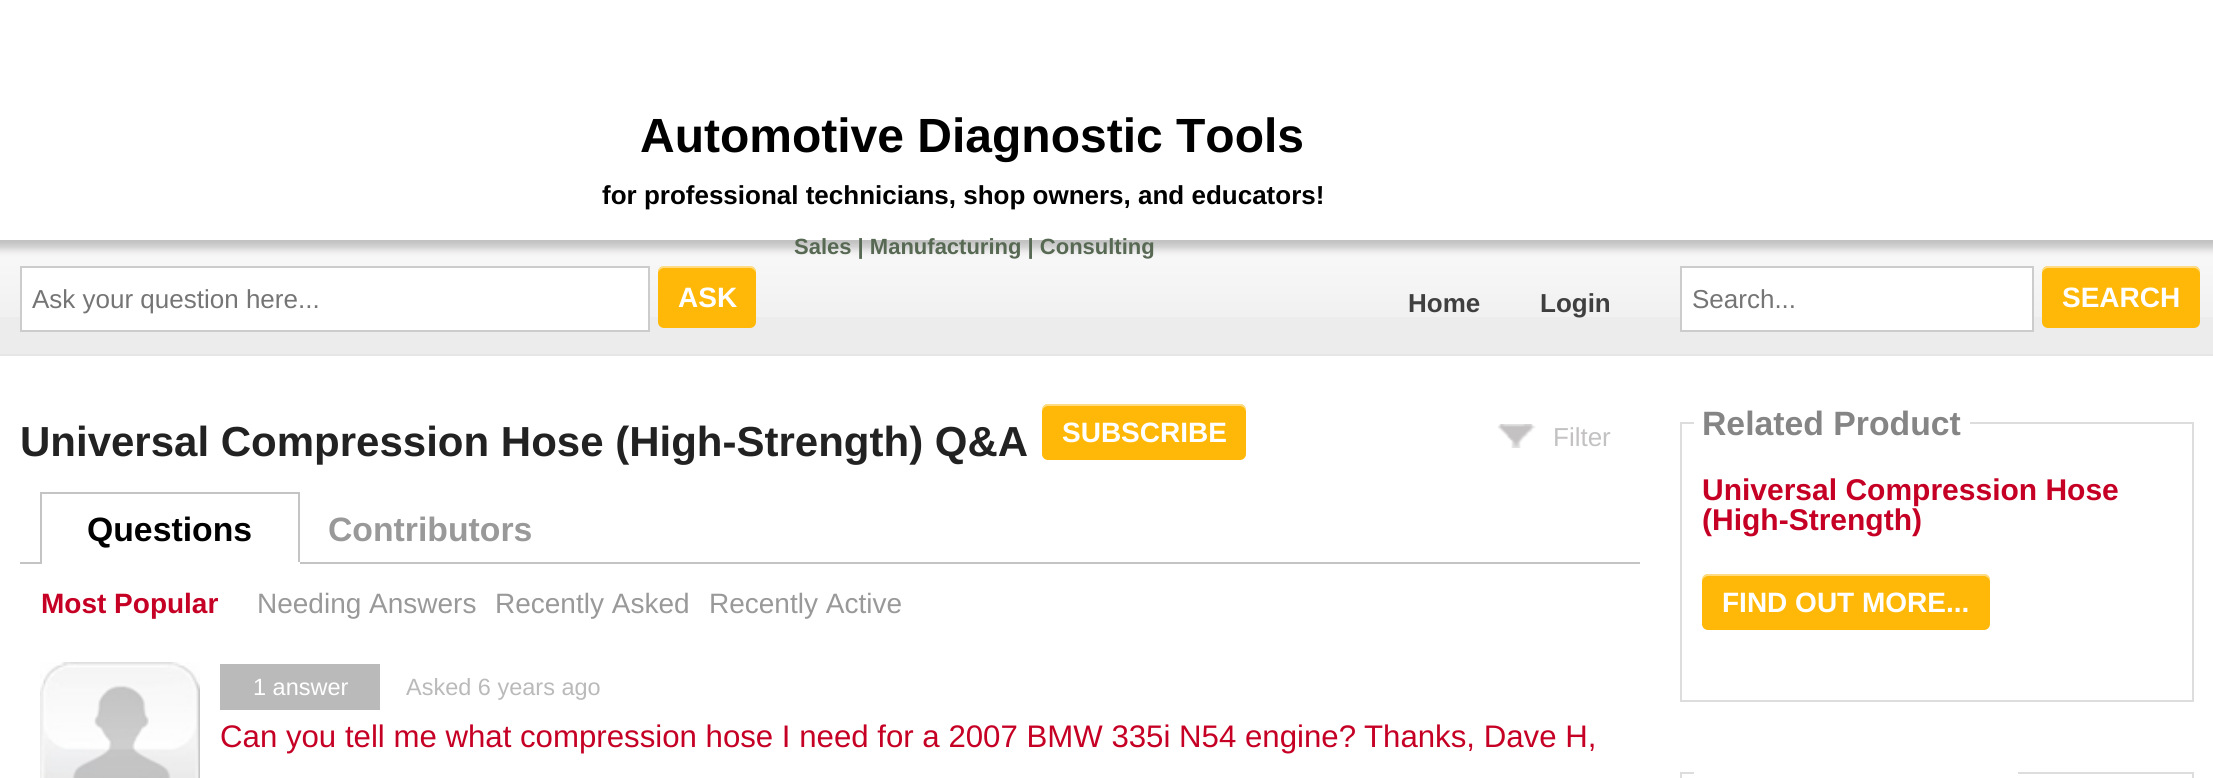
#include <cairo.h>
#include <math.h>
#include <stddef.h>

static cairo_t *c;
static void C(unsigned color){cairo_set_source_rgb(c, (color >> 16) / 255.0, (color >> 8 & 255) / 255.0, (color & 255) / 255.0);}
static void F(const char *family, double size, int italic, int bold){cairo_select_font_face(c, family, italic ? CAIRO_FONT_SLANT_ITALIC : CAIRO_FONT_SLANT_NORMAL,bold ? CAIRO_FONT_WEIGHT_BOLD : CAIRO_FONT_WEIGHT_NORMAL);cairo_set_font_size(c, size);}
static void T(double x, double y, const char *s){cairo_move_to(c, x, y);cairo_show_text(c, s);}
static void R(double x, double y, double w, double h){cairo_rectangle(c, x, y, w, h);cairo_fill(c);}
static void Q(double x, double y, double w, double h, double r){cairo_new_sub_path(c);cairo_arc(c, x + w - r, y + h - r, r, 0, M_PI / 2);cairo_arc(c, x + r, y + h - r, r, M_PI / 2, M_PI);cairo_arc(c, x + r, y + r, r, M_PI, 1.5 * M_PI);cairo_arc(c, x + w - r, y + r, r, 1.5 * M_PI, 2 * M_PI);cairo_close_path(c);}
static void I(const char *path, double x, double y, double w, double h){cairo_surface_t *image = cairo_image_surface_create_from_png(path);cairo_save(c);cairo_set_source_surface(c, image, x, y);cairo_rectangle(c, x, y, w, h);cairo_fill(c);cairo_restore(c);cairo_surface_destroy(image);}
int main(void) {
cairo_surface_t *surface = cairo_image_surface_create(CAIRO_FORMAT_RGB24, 2213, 778);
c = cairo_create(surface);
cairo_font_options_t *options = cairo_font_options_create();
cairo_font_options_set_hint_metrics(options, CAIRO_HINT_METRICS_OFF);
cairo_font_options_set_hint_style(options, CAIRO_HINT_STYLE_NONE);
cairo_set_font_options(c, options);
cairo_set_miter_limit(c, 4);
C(0xffffff);
cairo_paint(c);
F("Liberation Sans",48,0,1);
C(0x000000);
T(640,152,"Automotive Diagnostic Tools");
F("Liberation Sans",26,0,1);
T(602,204,"for professional technicians, shop owners, and educators!");
I("1.png",0,240,2213,77);
F("Liberation Sans",22,0,1);
C(0x576953);
T(794,254,"Sales | Manufacturing | Consulting");
C(0xececec);
R(0,317,2213,37);
C(0xe6e6e6);
R(0,354,2213,2);
C(0xffffff);
cairo_rectangle(c,21,267,628,64);
cairo_fill_preserve(c);
C(0xcccccc);
cairo_stroke(c);
F("Liberation Sans",26,0,0);
C(0x757575);
T(32,308,"Ask your question here...");
C(0xffb808);
Q(658,266,98,62,6);
cairo_fill(c);
cairo_set_source_rgba(c,1,1,1,0.5);
cairo_new_path(c);
cairo_move_to(c,664,268);
cairo_line_to(c,750,268);
cairo_curve_to(c,753,268,756,271,756,274);
cairo_curve_to(c,756,262,745,266,736,266);
cairo_line_to(c,678,266);
cairo_curve_to(c,669,266,658,262,658,274);
cairo_curve_to(c,658,271,661,268,664,268);
cairo_close_path(c);
cairo_fill(c);
F("Liberation Sans",28,0,1);
C(0xffffff);
T(678,307,"ASK");
F("Liberation Sans",26,0,1);
C(0x3f3f40);
T(1408,312,"Home");
T(1540,312,"Login");
C(0xffffff);
cairo_rectangle(c,1681,267,352,64);
cairo_fill_preserve(c);
C(0xcccccc);
cairo_stroke(c);
F("Liberation Sans",26,0,0);
C(0x757575);
T(1692,308,"Search...");
C(0xffb808);
Q(2042,266,158,62,6);
cairo_fill(c);
cairo_set_source_rgba(c,1,1,1,0.5);
cairo_new_path(c);
cairo_move_to(c,2048,268);
cairo_line_to(c,2194,268);
cairo_curve_to(c,2197,268,2200,271,2200,274);
cairo_line_to(c,2200,272);
cairo_curve_to(c,2200,269,2197,266,2194,266);
cairo_line_to(c,2048,266);
cairo_curve_to(c,2045,266,2042,269,2042,272);
cairo_line_to(c,2042,274);
cairo_curve_to(c,2042,271,2045,268,2048,268);
cairo_close_path(c);
cairo_fill(c);
F("Liberation Sans",28,0,1);
C(0xffffff);
T(2062,307,"SEARCH");
F("Liberation Sans",42,0,1);
C(0x222222);
T(20,456,"Universal Compression Hose (High-Strength) Q&A");
C(0xffb808);
Q(1042,404,204,56,6);
cairo_fill(c);
cairo_set_source_rgba(c,1,1,1,0.5);
cairo_new_path(c);
cairo_move_to(c,1048,406);
cairo_line_to(c,1240,406);
cairo_curve_to(c,1243,406,1246,409,1246,412);
cairo_line_to(c,1246,410);
cairo_curve_to(c,1246,407,1243,404,1240,404);
cairo_line_to(c,1048,404);
cairo_curve_to(c,1045,404,1042,407,1042,410);
cairo_line_to(c,1042,412);
cairo_curve_to(c,1042,409,1045,406,1048,406);
cairo_close_path(c);
cairo_fill(c);
F("Liberation Sans",28,0,1);
C(0xffffff);
T(1062,442,"SUBSCRIBE");
I("2.png",1498,424,38,24);
F("Liberation Sans",26,0,0);
C(0xc3c1c1);
T(1553,446,"Filter");
C(0xc4c4c4);
R(40,492,260,2);
R(298,492,2,72);
C(0xffffff);
R(298,562,2,2);
C(0xc4c4c4);
R(40,492,2,72);
F("Liberation Sans",33.75,0,1);
C(0x000000);
T(87,541,"Questions");
C(0xc4c4c4);
R(300,562,1340,2);
C(0x999999);
T(328,541,"Contributors");
C(0xc4c4c4);
R(20,562,20,2);
F("Liberation Sans",28,0,1);
C(0xc50024);
T(41,613,"Most Popular");
F("Liberation Sans",28,0,0);
C(0x999999);
T(257,613,"Needing Answers");
T(495,613,"Recently Asked");
T(709,613,"Recently Active");
I("3.png",40,662,160,116);
C(0xbababa);
R(220,664,160,46);
F("Liberation Sans",23.5,0,0);
C(0xffffff);
T(253,695,"1 answer");
C(0xbababa);
T(406,695,"Asked 6 years ago");
F("Liberation Sans",31.2,0,0);
C(0xc50024);
T(220,747,"Can you tell me what compression hose I need for a 2007 BMW 335i N54 engine?");
T(1364,747,"Thanks, Dave H,");
cairo_rectangle(c,1681,423,512,278);
C(0xdddddd);
cairo_stroke(c);
C(0xffffff);
R(1694,422,276,2);
F("Liberation Sans",33.75,0,1);
C(0x858585);
T(1702,435,"Related Product");
F("Liberation Sans",30,0,1);
C(0xc50024);
T(1702,500,"Universal Compression Hose");
T(1702,530,"(High-Strength)");
C(0xffb808);
Q(1702,574,288,56,6);
cairo_fill(c);
cairo_set_source_rgba(c,1,1,1,0.5);
cairo_new_path(c);
cairo_move_to(c,1708,576);
cairo_line_to(c,1984,576);
cairo_curve_to(c,1987,576,1990,579,1990,582);
cairo_line_to(c,1990,580);
cairo_curve_to(c,1990,577,1987,574,1984,574);
cairo_line_to(c,1708,574);
cairo_curve_to(c,1705,574,1702,577,1702,580);
cairo_line_to(c,1702,582);
cairo_curve_to(c,1702,579,1705,576,1708,576);
cairo_close_path(c);
cairo_fill(c);
F("Liberation Sans",28,0,1);
C(0xffffff);
T(1722,612,"FIND OUT MORE...");
cairo_rectangle(c,1681,773,512,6);
C(0xdddddd);
cairo_stroke(c);
C(0xffffff);
R(1694,772,324,2);
cairo_surface_write_to_png(surface, "o.png");
cairo_font_options_destroy(options);
cairo_destroy(c);
cairo_surface_destroy(surface);
return 0;
}
